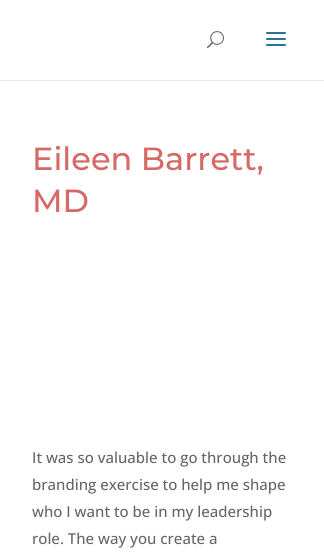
#include <cairo.h>
#include <math.h>
#include <stddef.h>

static cairo_t *c;
static void C(unsigned color){cairo_set_source_rgb(c, (color >> 16) / 255.0, (color >> 8 & 255) / 255.0, (color & 255) / 255.0);}
static void F(const char *family, double size, int italic, int bold){cairo_select_font_face(c, family, italic ? CAIRO_FONT_SLANT_ITALIC : CAIRO_FONT_SLANT_NORMAL,bold ? CAIRO_FONT_WEIGHT_BOLD : CAIRO_FONT_WEIGHT_NORMAL);cairo_set_font_size(c, size);}
static void T(double x, double y, const char *s){cairo_move_to(c, x, y);cairo_show_text(c, s);}
static void R(double x, double y, double w, double h){cairo_rectangle(c, x, y, w, h);cairo_fill(c);}
static void I(const char *path, double x, double y, double w, double h){cairo_surface_t *image = cairo_image_surface_create_from_png(path);cairo_save(c);cairo_set_source_surface(c, image, x, y);cairo_rectangle(c, x, y, w, h);cairo_fill(c);cairo_restore(c);cairo_surface_destroy(image);}
int main(void) {
cairo_surface_t *surface = cairo_image_surface_create(CAIRO_FORMAT_RGB24, 324, 558);
c = cairo_create(surface);
cairo_font_options_t *options = cairo_font_options_create();
cairo_font_options_set_hint_metrics(options, CAIRO_HINT_METRICS_OFF);
cairo_font_options_set_hint_style(options, CAIRO_HINT_STYLE_NONE);
cairo_set_font_options(c, options);
cairo_set_miter_limit(c, 4);
C(0xffffff);
cairo_paint(c);
C(0xe6e6e6);
R(0,80,324,1);
I("1.png",207,31,17,18);
I("2.png",266,32,20,14);
F("Montserrat Medium",32,0,0);
C(0xd66965);
T(32,170,"Eileen Barrett,");
T(32,212,"MD");
F("Open Sans Medium",15,0,0);
C(0x666666);
T(32,463,"It was so valuable to go through the");
T(32,490,"branding exercise to help me shape");
T(32,517,"who I want to be in my leadership");
T(32,544,"role. The way you create a");
cairo_surface_write_to_png(surface, "o.png");
cairo_font_options_destroy(options);
cairo_destroy(c);
cairo_surface_destroy(surface);
return 0;
}
